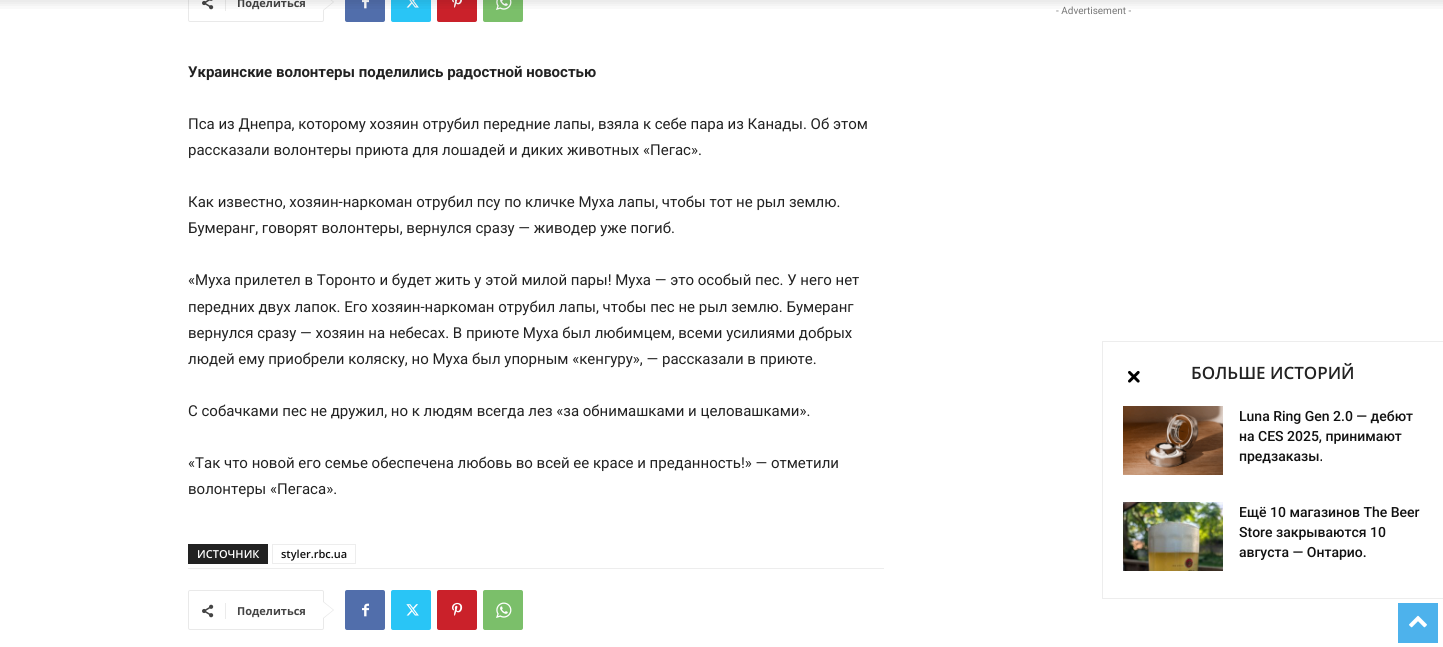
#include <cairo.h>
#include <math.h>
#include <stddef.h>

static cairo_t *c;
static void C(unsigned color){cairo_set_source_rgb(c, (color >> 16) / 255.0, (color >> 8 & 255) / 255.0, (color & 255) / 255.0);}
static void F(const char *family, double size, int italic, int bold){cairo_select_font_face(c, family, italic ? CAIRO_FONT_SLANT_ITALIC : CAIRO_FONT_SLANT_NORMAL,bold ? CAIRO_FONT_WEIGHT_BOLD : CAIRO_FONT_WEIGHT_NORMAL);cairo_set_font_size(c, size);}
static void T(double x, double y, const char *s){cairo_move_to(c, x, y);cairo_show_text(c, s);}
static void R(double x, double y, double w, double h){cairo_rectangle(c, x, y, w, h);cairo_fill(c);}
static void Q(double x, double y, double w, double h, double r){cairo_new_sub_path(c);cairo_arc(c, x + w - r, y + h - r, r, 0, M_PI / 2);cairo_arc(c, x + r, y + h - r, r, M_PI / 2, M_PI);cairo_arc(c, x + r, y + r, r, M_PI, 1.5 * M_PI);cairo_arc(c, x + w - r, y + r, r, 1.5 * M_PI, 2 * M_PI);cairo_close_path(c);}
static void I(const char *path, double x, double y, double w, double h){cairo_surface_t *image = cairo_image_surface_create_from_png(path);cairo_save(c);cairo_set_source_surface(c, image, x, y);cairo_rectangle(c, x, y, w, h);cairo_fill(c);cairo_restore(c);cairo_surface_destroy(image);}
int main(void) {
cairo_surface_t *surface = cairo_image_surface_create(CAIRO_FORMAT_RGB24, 1443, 647);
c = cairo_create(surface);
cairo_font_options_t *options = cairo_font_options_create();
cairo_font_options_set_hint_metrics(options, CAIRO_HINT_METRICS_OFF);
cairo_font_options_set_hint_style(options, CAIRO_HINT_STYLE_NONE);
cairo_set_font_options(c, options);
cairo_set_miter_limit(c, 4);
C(0xffffff);
cairo_paint(c);
Q(188.5,-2.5,135,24,1.5);
C(0xe9e9e9);
cairo_set_line_width(c,1);
cairo_stroke(c);
I("2.png",202,0,12,10);
C(0xebebeb);
R(225,0,1,11);
F("Open Sans",11,0,1);
C(0x444444);
T(237,7,"Поделиться");
C(0xe9e9e9);
cairo_new_path(c);
cairo_move_to(c,323,11);
cairo_line_to(c,323,-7);
cairo_line_to(c,334,2);
cairo_close_path(c);
cairo_fill(c);
C(0xffffff);
cairo_new_path(c);
cairo_move_to(c,323,10);
cairo_line_to(c,323,-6);
cairo_line_to(c,333,2);
cairo_close_path(c);
cairo_fill(c);
C(0x516eab);
Q(345,-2,40,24,2);
cairo_fill(c);
I("3.png",362,0,7,9);
C(0x29c5f6);
Q(391,-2,40,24,2);
cairo_fill(c);
I("4.png",406,0,13,8);
C(0xca212a);
Q(437,-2,40,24,2);
cairo_fill(c);
I("5.png",452,0,10,8);
C(0x7bbf6a);
Q(483,-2,40,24,2);
cairo_fill(c);
I("6.png",496,0,16,10);
F("Roboto",10,0,0);
C(0x767676);
T(1056,14,"- Advertisement -");
I("1.png",0,0,1443,9);
F("Roboto",15,0,1);
C(0x222222);
T(188,77,"Украинские волонтеры поделились радостной новостью");
F("Roboto",15,0,0);
T(188,129,"Пса из Днепра, которому хозяин отрубил передние лапы, взяла к себе пара из Канады. Об этом");
T(188,155,"рассказали волонтеры приюта для лошадей и диких животных «Пегас».");
T(188,207,"Как известно, хозяин-наркоман отрубил псу по кличке Муха лапы, чтобы тот не рыл землю.");
T(188,233,"Бумеранг, говорят волонтеры, вернулся сразу — живодер уже погиб.");
T(188,285,"«Муха прилетел в Торонто и будет жить у этой милой пары! Муха — это особый пес. У него нет");
T(188,312,"передних двух лапок. Его хозяин-наркоман отрубил лапы, чтобы пес не рыл землю. Бумеранг");
T(188,338,"вернулся сразу — хозяин на небесах. В приюте Муха был любимцем, всеми усилиями добрых");
T(188,364,"людей ему приобрели коляску, но Муха был упорным «кенгуру», — рассказали в приюте.");
T(188,416,"С собачками пес не дружил, но к людям всегда лез «за обнимашками и целовашками».");
T(188,468,"«Так что новой его семье обеспечена любовь во всей ее красе и преданность!» — отметили");
T(188,494,"волонтеры «Пегаса».");
R(188,544,80,20);
F("Open Sans SemiBold",11,0,0);
C(0xffffff);
T(197,558,"ИСТОЧНИК");
cairo_rectangle(c,272.5,544.5,83,19);
C(0xededed);
cairo_stroke(c);
C(0x111111);
T(281,558,"styler.rbc.ua");
C(0xededed);
R(188,568,696,1);
Q(188.5,590.5,135,39,1.5);
C(0xe9e9e9);
cairo_stroke(c);
cairo_new_path(c);
cairo_move_to(c,323,619);
cairo_line_to(c,323,601);
cairo_line_to(c,334,610);
cairo_close_path(c);
cairo_fill(c);
I("7.png",202,604,12,14);
C(0xebebeb);
R(225,603,1,16);
F("Open Sans",11,0,1);
C(0x444444);
T(237,615,"Поделиться");
C(0xffffff);
cairo_new_path(c);
cairo_move_to(c,323,618);
cairo_line_to(c,323,602);
cairo_line_to(c,333,610);
cairo_close_path(c);
cairo_fill(c);
C(0x516eab);
Q(345,590,40,40,2);
cairo_fill(c);
I("8.png",362,603,7,14);
C(0x29c5f6);
Q(391,590,40,40,2);
cairo_fill(c);
I("9.png",406,604,13,12);
C(0xca212a);
Q(437,590,40,40,2);
cairo_fill(c);
I("10.png",452,602,11,14);
C(0x7bbf6a);
Q(483,590,40,40,2);
cairo_fill(c);
I("11.png",496,602,16,16);
C(0xededed);
R(1102,341,341,1);
R(1102,598,341,1);
R(1102,341,1,258);
I("12.png",1128,370,12,13);
F("Open Sans SemiBold",17,0,0);
C(0x222222);
T(1191,379,"БОЛЬШЕ ИСТОРИЙ");
I("13.png",1123,406,100,69);
F("Roboto Medium",14,0,0);
C(0x111111);
T(1239,421,"Luna Ring Gen 2.0 — дебют");
T(1239,441,"на CES 2025, принимают");
T(1239,461,"предзаказы.");
I("14.png",1123,502,100,69);
T(1239,517,"Ещё 10 магазинов The Beer");
T(1239,537,"Store закрываются 10");
T(1239,557,"августа — Онтарио.");
C(0x4db2ec);
R(1398,603,40,40);
I("15.png",1409,615,18,13);
cairo_surface_write_to_png(surface, "o.png");
cairo_font_options_destroy(options);
cairo_destroy(c);
cairo_surface_destroy(surface);
return 0;
}
